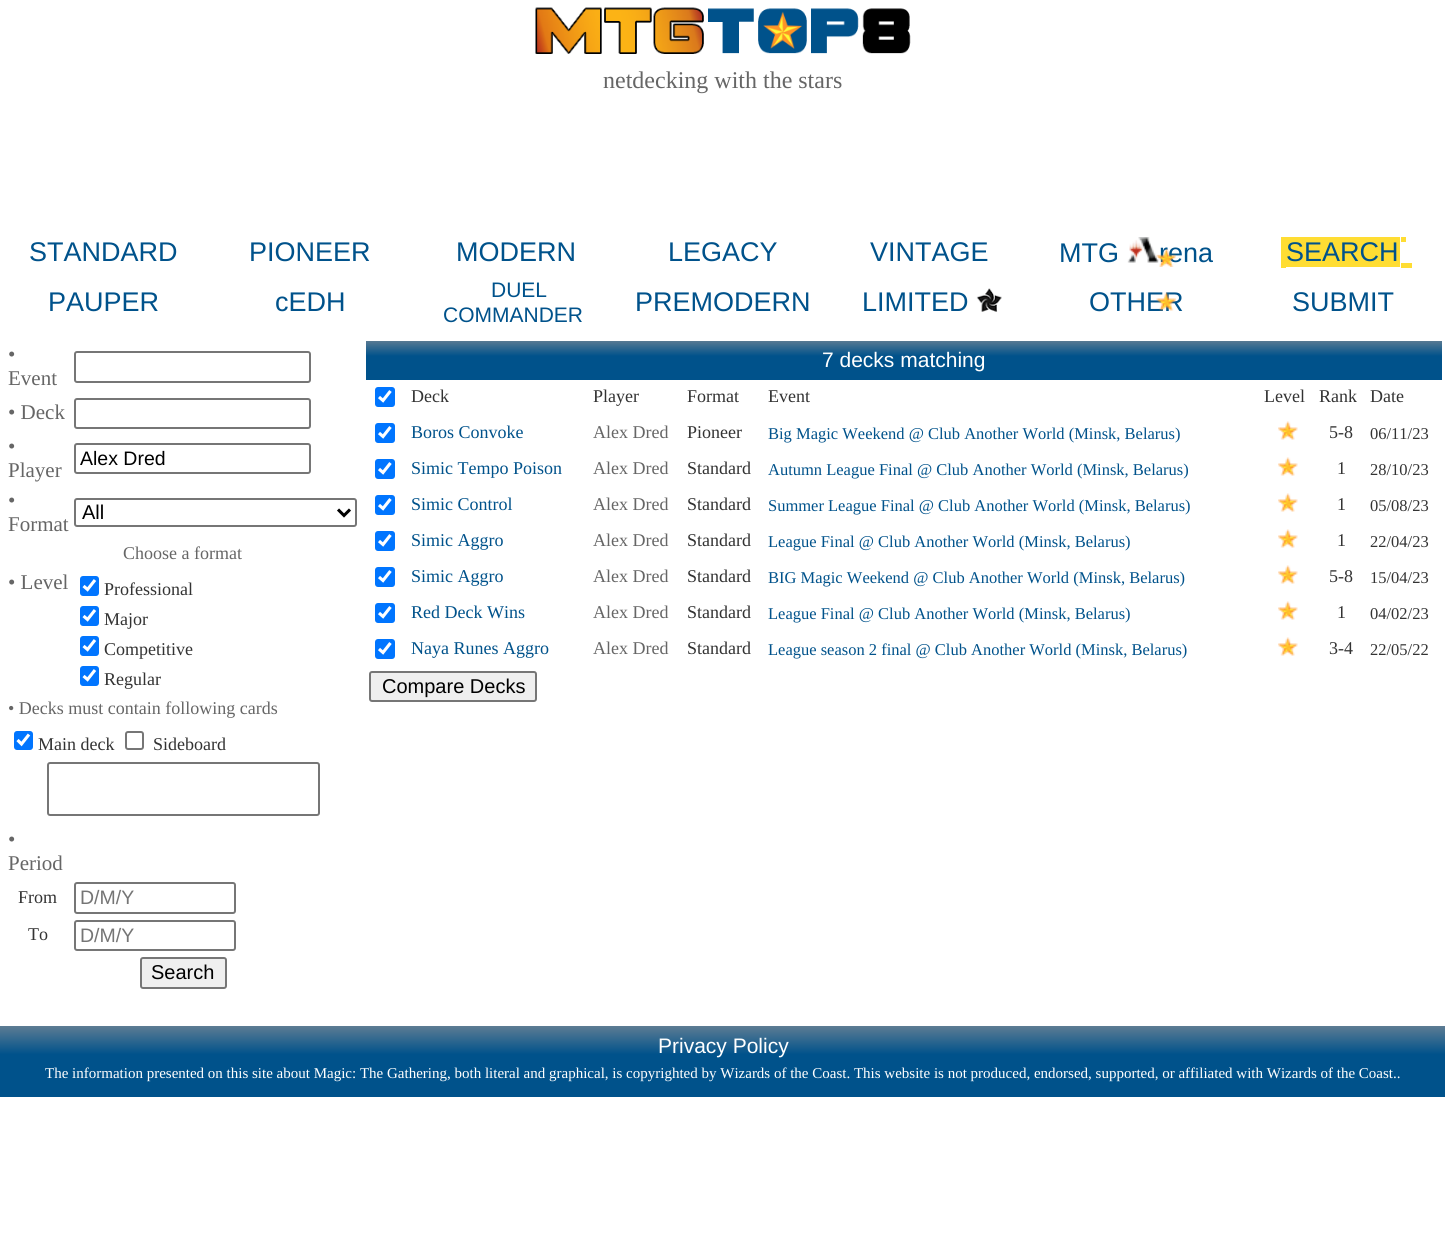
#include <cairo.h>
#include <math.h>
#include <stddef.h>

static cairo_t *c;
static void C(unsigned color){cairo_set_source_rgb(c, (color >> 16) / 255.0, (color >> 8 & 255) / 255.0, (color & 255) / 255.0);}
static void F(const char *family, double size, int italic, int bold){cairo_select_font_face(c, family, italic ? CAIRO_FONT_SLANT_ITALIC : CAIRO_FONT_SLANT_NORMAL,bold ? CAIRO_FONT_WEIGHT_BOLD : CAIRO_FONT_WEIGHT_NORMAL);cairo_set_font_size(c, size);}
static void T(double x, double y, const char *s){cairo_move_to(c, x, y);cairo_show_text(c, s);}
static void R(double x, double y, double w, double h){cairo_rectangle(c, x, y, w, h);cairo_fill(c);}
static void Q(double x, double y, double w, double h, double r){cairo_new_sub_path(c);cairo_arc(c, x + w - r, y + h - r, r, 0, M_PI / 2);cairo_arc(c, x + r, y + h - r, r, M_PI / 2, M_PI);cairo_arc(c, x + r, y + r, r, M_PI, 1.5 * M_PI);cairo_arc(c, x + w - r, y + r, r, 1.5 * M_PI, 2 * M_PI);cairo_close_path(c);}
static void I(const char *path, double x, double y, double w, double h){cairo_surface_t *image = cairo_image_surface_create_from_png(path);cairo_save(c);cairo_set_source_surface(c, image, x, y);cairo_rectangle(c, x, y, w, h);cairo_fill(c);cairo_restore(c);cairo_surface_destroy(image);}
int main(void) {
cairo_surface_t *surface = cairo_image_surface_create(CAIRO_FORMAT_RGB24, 1445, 1242);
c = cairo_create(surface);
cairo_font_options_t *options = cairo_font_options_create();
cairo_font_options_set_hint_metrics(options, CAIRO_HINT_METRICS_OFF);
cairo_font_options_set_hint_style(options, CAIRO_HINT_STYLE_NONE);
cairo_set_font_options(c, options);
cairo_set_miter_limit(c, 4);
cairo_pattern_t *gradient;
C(0xffffff);
cairo_paint(c);
I("1.png",535,7,376,47);
F("Liberation Serif",24,0,0);
C(0x666666);
T(603,88,"netdecking with the stars");
F("Liberation Sans",27,0,0);
C(0x00528b);
T(29,261,"STANDARD");
T(249,261,"PIONEER");
T(456,261,"MODERN");
T(668,261,"LEGACY");
T(870,261,"VINTAGE");
T(1059,262,"MTG");
I("2.png",1127,237,32,26);
T(1159,262,"rena");
C(0xffdd33);
R(1281,237,119,30);
C(0x00528b);
T(1286,261,"SEARCH");
C(0xffdd33);
R(1401,237,5,5);
R(1281,267,5,1);
R(1401,263,11,5);
I("3.png",1156,249,20,18);
C(0x00528b);
T(48,311,"PAUPER");
T(275,311,"cEDH");
F("Liberation Sans",21,0,0);
T(491,297,"DUEL");
T(443,322,"COMMANDER");
F("Liberation Sans",27,0,0);
T(635,311,"PREMODERN");
T(862,311,"LIMITED");
I("4.png",976,288,26,24);
T(1089,311,"OTHER");
T(1292,311,"SUBMIT");
I("5.png",1156,292,20,19);
F("Liberation Serif",21,0,0);
C(0x666666);
T(8,361,"•");
T(8,385,"Event");
Q(75,352,235,30,2);
C(0x767676);
cairo_stroke(c);
C(0x666666);
T(8,419,"• Deck");
Q(75,399,235,29,2);
C(0x767676);
cairo_stroke(c);
C(0x666666);
T(8,453,"•");
T(8,477,"Player");
Q(75,444,235,29,2);
C(0x767676);
cairo_stroke(c);
F("Liberation Sans",19.5,0,0);
C(0x000000);
T(80,465,"Alex Dred");
F("Liberation Serif",21,0,0);
C(0x666666);
T(8,507,"•");
T(8,531,"Format");
Q(75,499,281,27,2);
C(0x767676);
cairo_stroke(c);
cairo_new_path(c);
cairo_move_to(c,338,509.5);
cairo_line_to(c,344,515.5);
cairo_line_to(c,350,509.5);
C(0x000000);
cairo_set_line_width(c,3);
cairo_stroke(c);
F("Liberation Sans",20,0,0);
T(82,519,"All");
F("Liberation Serif",18,0,0);
C(0x666666);
T(123,559,"Choose a format");
F("Liberation Serif",21,0,0);
T(8,589,"• Level");
C(0x0075ff);
Q(80,576,19,20,3);
cairo_fill(c);
cairo_new_path(c);
cairo_move_to(c,83.5,586);
cairo_line_to(c,87.5,589.5);
cairo_line_to(c,95,580);
C(0xffffff);
cairo_set_line_width(c,3.1);
cairo_stroke(c);
F("Liberation Serif",18,0,0);
C(0x333333);
T(104,595,"Professional");
C(0x0075ff);
Q(80,606,19,20,3);
cairo_fill(c);
cairo_new_path(c);
cairo_move_to(c,83.5,616);
cairo_line_to(c,87.5,619.5);
cairo_line_to(c,95,610);
C(0xffffff);
cairo_stroke(c);
C(0x333333);
T(104,625,"Major");
C(0x0075ff);
Q(80,636,19,20,3);
cairo_fill(c);
cairo_new_path(c);
cairo_move_to(c,83.5,646);
cairo_line_to(c,87.5,649.5);
cairo_line_to(c,95,640);
C(0xffffff);
cairo_stroke(c);
C(0x333333);
T(104,655,"Competitive");
C(0x0075ff);
Q(80,666,19,20,3);
cairo_fill(c);
cairo_new_path(c);
cairo_move_to(c,83.5,676);
cairo_line_to(c,87.5,679.5);
cairo_line_to(c,95,670);
C(0xffffff);
cairo_stroke(c);
C(0x333333);
T(104,685,"Regular");
C(0x666666);
T(8,714,"• Decks must contain following cards");
C(0x0075ff);
Q(14,731,19,19,3);
cairo_fill(c);
cairo_new_path(c);
cairo_move_to(c,17.5,740);
cairo_line_to(c,21.5,744);
cairo_line_to(c,29,734.5);
C(0xffffff);
cairo_stroke(c);
C(0x333333);
T(38,750,"Main deck");
Q(126,732,17,17,2);
C(0x767676);
cairo_set_line_width(c,2);
cairo_stroke(c);
C(0x333333);
T(153,750,"Sideboard");
Q(48,763,271,52,2);
C(0x767676);
cairo_stroke(c);
F("Liberation Serif",21,0,0);
C(0x666666);
T(8,846,"•");
T(8,870,"Period");
F("Liberation Serif",18,0,0);
C(0x333333);
T(18,903,"From");
Q(75,883,160,30,2);
C(0x767676);
cairo_stroke(c);
F("Liberation Sans",19.5,0,0);
C(0x757575);
T(80,904,"D/M/Y");
F("Liberation Serif",18,0,0);
C(0x333333);
T(28,940,"To");
Q(75,921,160,29,2);
C(0x767676);
cairo_stroke(c);
F("Liberation Sans",19.5,0,0);
C(0x757575);
T(80,942,"D/M/Y");
C(0xefefef);
Q(141,958,85,30,2);
cairo_fill_preserve(c);
C(0x767676);
cairo_stroke(c);
F("Liberation Sans",20,0,0);
C(0x000000);
T(151,979,"Search");
gradient = cairo_pattern_create_linear(904,340,904,380);
cairo_pattern_add_color_stop_rgba(gradient,0,0.365,0.486,0.576,1);
cairo_pattern_add_color_stop_rgba(gradient,.4,0,0.322,0.545,1);
cairo_pattern_add_color_stop_rgba(gradient,1,0,0.322,0.545,1);
cairo_set_source(c,gradient);
cairo_pattern_destroy(gradient);
R(366,341,1076,39);
F("Liberation Sans",21,0,0);
C(0xffffff);
T(822,367,"7 decks matching");
C(0x0075ff);
Q(375,387,20,20,3);
cairo_fill(c);
cairo_new_path(c);
cairo_move_to(c,379,397);
cairo_line_to(c,383,400.5);
cairo_line_to(c,390.5,391);
C(0xffffff);
cairo_set_line_width(c,3.1);
cairo_stroke(c);
F("Liberation Serif",18,0,0);
C(0x333333);
T(411,402,"Deck");
T(593,402,"Player");
T(687,402,"Format");
T(768,402,"Event");
T(1264,402,"Level");
T(1319,402,"Rank");
T(1370,402,"Date");
C(0x0075ff);
Q(375,423,20,20,3);
cairo_fill(c);
cairo_new_path(c);
cairo_move_to(c,379,433);
cairo_line_to(c,383,436.5);
cairo_line_to(c,390.5,427);
C(0xffffff);
cairo_stroke(c);
C(0x00528b);
T(411,438,"Boros Convoke");
C(0x666666);
T(593,438,"Alex Dred");
C(0x333333);
T(687,438,"Pioneer");
F("Liberation Serif",16.5,0,0);
C(0x00528b);
T(768,439,"Big Magic Weekend @ Club Another World (Minsk, Belarus)");
I("6.png",1278,421,20,19);
F("Liberation Serif",18,0,0);
C(0x333333);
T(1329,438,"5-8");
F("Liberation Serif",16.5,0,0);
T(1370,439,"06/11/23");
C(0x0075ff);
Q(375,459,20,20,3);
cairo_fill(c);
cairo_new_path(c);
cairo_move_to(c,379,469);
cairo_line_to(c,383,472.5);
cairo_line_to(c,390.5,463);
C(0xffffff);
cairo_stroke(c);
F("Liberation Serif",18,0,0);
C(0x00528b);
T(411,474,"Simic Tempo Poison");
C(0x666666);
T(593,474,"Alex Dred");
C(0x333333);
T(687,474,"Standard");
F("Liberation Serif",16.5,0,0);
C(0x00528b);
T(768,475,"Autumn League Final @ Club Another World (Minsk, Belarus)");
I("6.png",1278,457,20,19);
F("Liberation Serif",18,0,0);
C(0x333333);
T(1337,474,"1");
F("Liberation Serif",16.5,0,0);
T(1370,475,"28/10/23");
C(0x0075ff);
Q(375,495,20,20,3);
cairo_fill(c);
cairo_new_path(c);
cairo_move_to(c,379,505);
cairo_line_to(c,383,508.5);
cairo_line_to(c,390.5,499);
C(0xffffff);
cairo_stroke(c);
F("Liberation Serif",18,0,0);
C(0x00528b);
T(411,510,"Simic Control");
C(0x666666);
T(593,510,"Alex Dred");
C(0x333333);
T(687,510,"Standard");
F("Liberation Serif",16.5,0,0);
C(0x00528b);
T(768,511,"Summer League Final @ Club Another World (Minsk, Belarus)");
I("6.png",1278,493,20,19);
F("Liberation Serif",18,0,0);
C(0x333333);
T(1337,510,"1");
F("Liberation Serif",16.5,0,0);
T(1370,511,"05/08/23");
C(0x0075ff);
Q(375,531,20,20,3);
cairo_fill(c);
cairo_new_path(c);
cairo_move_to(c,379,541);
cairo_line_to(c,383,544.5);
cairo_line_to(c,390.5,535);
C(0xffffff);
cairo_stroke(c);
F("Liberation Serif",18,0,0);
C(0x00528b);
T(411,546,"Simic Aggro");
C(0x666666);
T(593,546,"Alex Dred");
C(0x333333);
T(687,546,"Standard");
F("Liberation Serif",16.5,0,0);
C(0x00528b);
T(768,547,"League Final @ Club Another World (Minsk, Belarus)");
I("6.png",1278,529,20,19);
F("Liberation Serif",18,0,0);
C(0x333333);
T(1337,546,"1");
F("Liberation Serif",16.5,0,0);
T(1370,547,"22/04/23");
C(0x0075ff);
Q(375,567,20,20,3);
cairo_fill(c);
cairo_new_path(c);
cairo_move_to(c,379,577);
cairo_line_to(c,383,580.5);
cairo_line_to(c,390.5,571);
C(0xffffff);
cairo_stroke(c);
F("Liberation Serif",18,0,0);
C(0x00528b);
T(411,582,"Simic Aggro");
C(0x666666);
T(593,582,"Alex Dred");
C(0x333333);
T(687,582,"Standard");
F("Liberation Serif",16.5,0,0);
C(0x00528b);
T(768,583,"BIG Magic Weekend @ Club Another World (Minsk, Belarus)");
I("6.png",1278,565,20,19);
F("Liberation Serif",18,0,0);
C(0x333333);
T(1329,582,"5-8");
F("Liberation Serif",16.5,0,0);
T(1370,583,"15/04/23");
C(0x0075ff);
Q(375,603,20,20,3);
cairo_fill(c);
cairo_new_path(c);
cairo_move_to(c,379,613);
cairo_line_to(c,383,616.5);
cairo_line_to(c,390.5,607);
C(0xffffff);
cairo_stroke(c);
F("Liberation Serif",18,0,0);
C(0x00528b);
T(411,618,"Red Deck Wins");
C(0x666666);
T(593,618,"Alex Dred");
C(0x333333);
T(687,618,"Standard");
F("Liberation Serif",16.5,0,0);
C(0x00528b);
T(768,619,"League Final @ Club Another World (Minsk, Belarus)");
I("6.png",1278,601,20,19);
F("Liberation Serif",18,0,0);
C(0x333333);
T(1337,618,"1");
F("Liberation Serif",16.5,0,0);
T(1370,619,"04/02/23");
C(0x0075ff);
Q(375,639,20,20,3);
cairo_fill(c);
cairo_new_path(c);
cairo_move_to(c,379,649);
cairo_line_to(c,383,652.5);
cairo_line_to(c,390.5,643);
C(0xffffff);
cairo_stroke(c);
F("Liberation Serif",18,0,0);
C(0x00528b);
T(411,654,"Naya Runes Aggro");
C(0x666666);
T(593,654,"Alex Dred");
C(0x333333);
T(687,654,"Standard");
F("Liberation Serif",16.5,0,0);
C(0x00528b);
T(768,655,"League season 2 final @ Club Another World (Minsk, Belarus)");
I("6.png",1278,637,20,19);
F("Liberation Serif",18,0,0);
C(0x333333);
T(1329,654,"3-4");
F("Liberation Serif",16.5,0,0);
T(1370,655,"22/05/22");
C(0xefefef);
Q(370,672,166,29,2);
cairo_fill_preserve(c);
C(0x767676);
cairo_set_line_width(c,2);
cairo_stroke(c);
F("Liberation Sans",20,0,0);
C(0x000000);
T(382,693,"Compare Decks");
gradient = cairo_pattern_create_linear(723,1026,723,1097);
cairo_pattern_add_color_stop_rgba(gradient,0,0.365,0.486,0.576,1);
cairo_pattern_add_color_stop_rgba(gradient,.4,0,0.322,0.545,1);
cairo_pattern_add_color_stop_rgba(gradient,1,0,0.322,0.545,1);
cairo_set_source(c,gradient);
cairo_pattern_destroy(gradient);
R(0,1026,1445,71);
F("Liberation Sans",21,0,0);
C(0xffffff);
T(658,1053,"Privacy Policy");
F("Liberation Serif",15,0,0);
T(45,1078,"The information presented on this site about Magic: The Gathering, both literal and graphical, is copyrighted by Wizards of the Coast. This website is not produced, endorsed, supported, or affiliated with Wizards of the Coast..");
cairo_surface_write_to_png(surface, "o.png");
cairo_font_options_destroy(options);
cairo_destroy(c);
cairo_surface_destroy(surface);
return 0;
}
